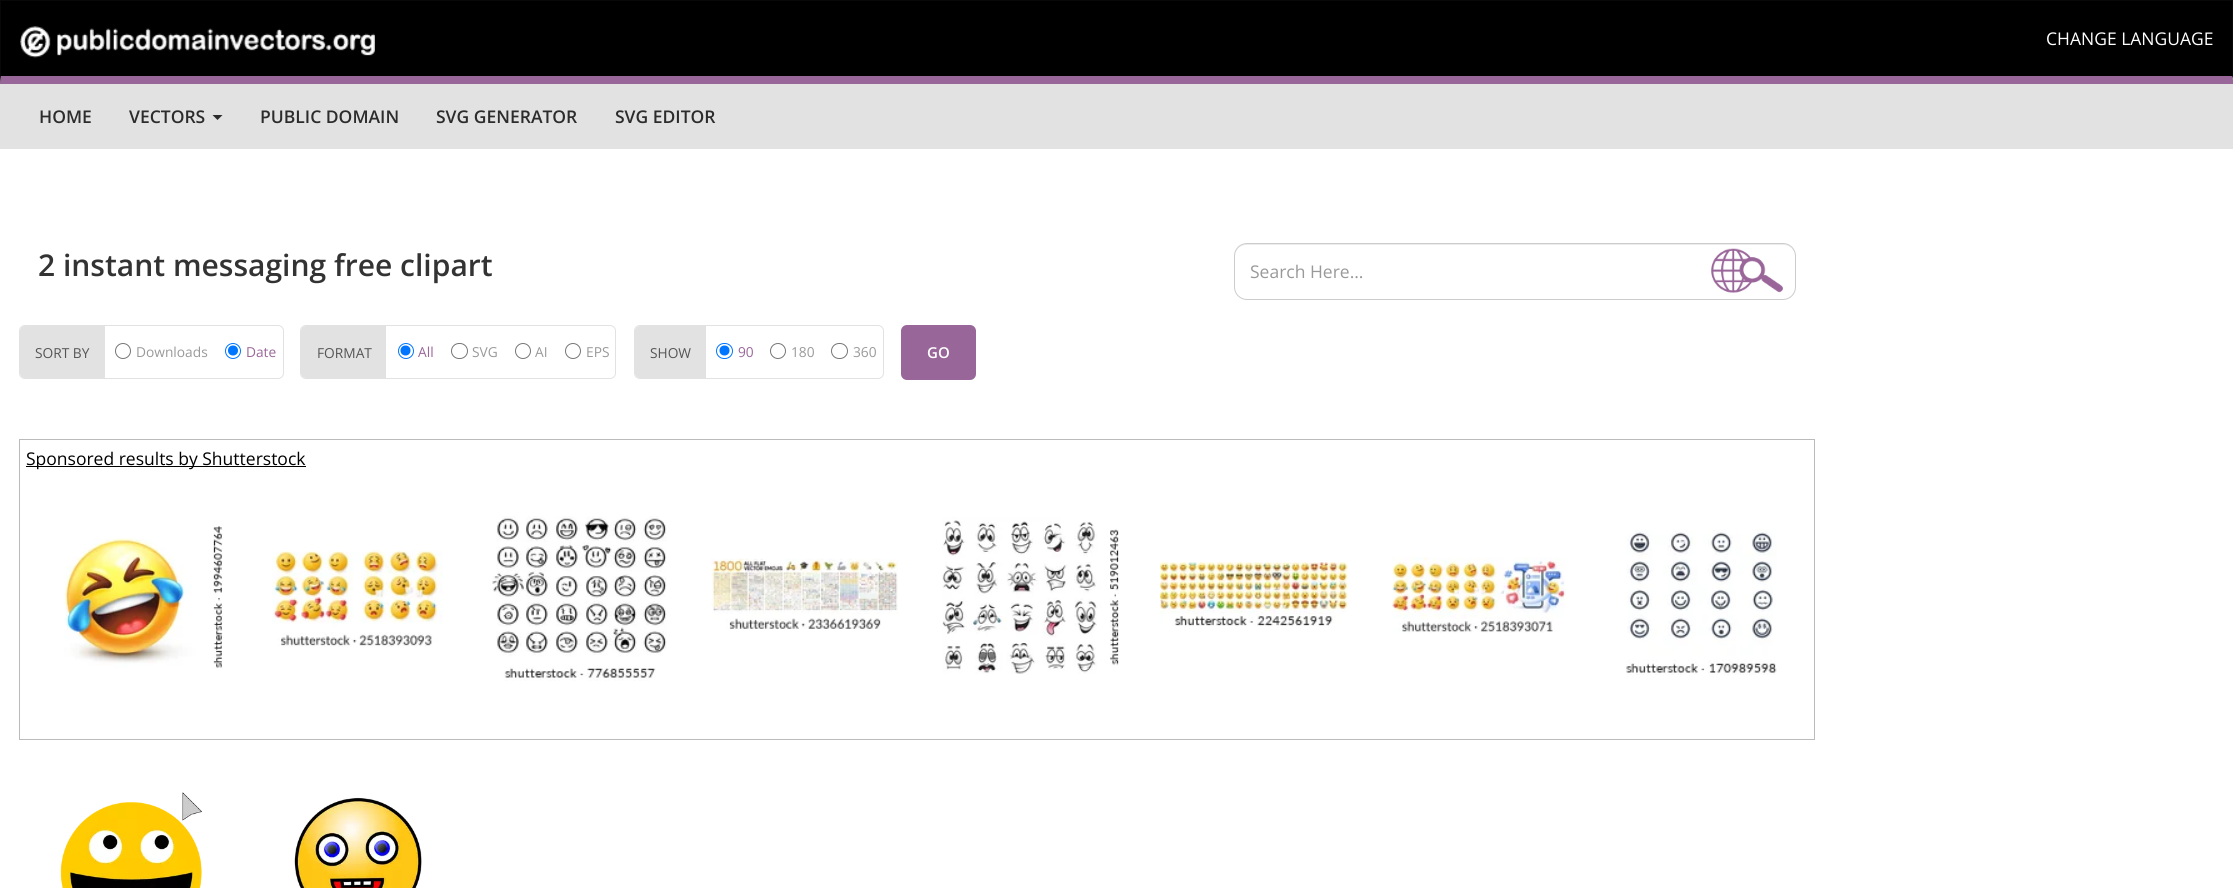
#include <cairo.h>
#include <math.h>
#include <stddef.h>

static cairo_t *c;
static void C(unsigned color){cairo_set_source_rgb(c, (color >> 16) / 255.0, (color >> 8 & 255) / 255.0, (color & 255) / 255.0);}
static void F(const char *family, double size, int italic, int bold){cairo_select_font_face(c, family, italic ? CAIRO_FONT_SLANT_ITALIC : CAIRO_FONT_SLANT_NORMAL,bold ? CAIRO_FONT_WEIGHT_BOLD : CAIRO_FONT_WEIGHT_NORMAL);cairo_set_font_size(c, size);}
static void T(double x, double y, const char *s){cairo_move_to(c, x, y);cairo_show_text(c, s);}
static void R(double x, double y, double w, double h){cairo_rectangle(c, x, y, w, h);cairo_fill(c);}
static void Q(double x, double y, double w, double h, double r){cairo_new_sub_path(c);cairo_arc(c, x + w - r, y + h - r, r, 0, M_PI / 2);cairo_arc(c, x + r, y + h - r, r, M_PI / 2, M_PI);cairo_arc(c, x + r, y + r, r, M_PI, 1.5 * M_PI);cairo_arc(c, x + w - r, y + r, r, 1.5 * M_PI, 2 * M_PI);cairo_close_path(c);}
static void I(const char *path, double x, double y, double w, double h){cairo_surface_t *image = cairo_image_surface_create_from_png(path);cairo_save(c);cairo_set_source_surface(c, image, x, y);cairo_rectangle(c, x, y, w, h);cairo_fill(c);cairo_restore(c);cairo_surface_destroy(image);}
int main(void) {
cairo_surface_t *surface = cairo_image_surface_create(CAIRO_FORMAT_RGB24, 2233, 888);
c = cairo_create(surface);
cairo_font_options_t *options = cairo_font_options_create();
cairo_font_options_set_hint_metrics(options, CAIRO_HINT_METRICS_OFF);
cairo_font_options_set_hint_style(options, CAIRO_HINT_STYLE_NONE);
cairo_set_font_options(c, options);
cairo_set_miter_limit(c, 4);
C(0xffffff);
cairo_paint(c);
C(0x000000);
R(1,1,2231,75);
C(0x080808);
R(0,0,2233,1);
cairo_new_path(c);
cairo_move_to(c,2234,0);
cairo_line_to(c,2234,84);
cairo_line_to(c,2232,76);
cairo_line_to(c,2232,1);
cairo_close_path(c);
cairo_fill(c);
C(0x996699);
cairo_new_path(c);
cairo_move_to(c,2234,84);
cairo_line_to(c,0,84);
cairo_line_to(c,1,76);
cairo_line_to(c,2232,76);
cairo_close_path(c);
cairo_fill(c);
C(0x080808);
cairo_new_path(c);
cairo_move_to(c,0,84);
cairo_line_to(c,0,0);
cairo_line_to(c,1,1);
cairo_line_to(c,1,76);
cairo_close_path(c);
cairo_fill(c);
I("1.png",20,26,355,32);
F("Open Sans",17.5,0,0);
C(0xffffff);
T(2046,45,"CHANGE LANGUAGE");
C(0xe2e2e2);
R(0,84,2233,65);
F("Open Sans SemiBold",17.5,0,0);
C(0x2c2c2c);
T(39,123,"HOME");
T(129,123,"VECTORS");
cairo_new_path(c);
cairo_move_to(c,212.5,115);
cairo_line_to(c,222.5,115);
cairo_line_to(c,217.5,120);
cairo_close_path(c);
cairo_fill(c);
T(260,123,"PUBLIC DOMAIN");
T(436,123,"SVG GENERATOR");
T(615,123,"SVG EDITOR");
F("Open Sans SemiBold",30,0,0);
C(0x333333);
T(38,276,"2 instant messaging free clipart");
I("2.png",1711,248,72,45);
C(0xececec);
cairo_new_path(c);
cairo_move_to(c,1246,245);
cairo_line_to(c,1784,245);
cairo_curve_to(c,1790,245,1795,250,1795,256);
cairo_curve_to(c,1795,250,1791,244,1784,244);
cairo_line_to(c,1246,244);
cairo_curve_to(c,1239,244,1235,250,1235,256);
cairo_curve_to(c,1235,250,1240,245,1246,245);
cairo_close_path(c);
cairo_fill(c);
Q(1234.5,243.5,561,56,12.5);
C(0xcccccc);
cairo_set_line_width(c,1);
cairo_stroke(c);
F("Open Sans",17.5,0,0);
C(0x999999);
T(1250,278,"Search Here…");
Q(19.5,325.5,264,53,5.5);
C(0xe2e2e2);
cairo_stroke(c);
cairo_new_path(c);
cairo_move_to(c,25,326);
cairo_line_to(c,105,326);
cairo_line_to(c,105,378);
cairo_line_to(c,25,378);
cairo_curve_to(c,22,378,20,376,20,373);
cairo_line_to(c,20,331);
cairo_curve_to(c,20,328,22,326,25,326);
cairo_close_path(c);
cairo_fill(c);
F("Open Sans",13.75,0,0);
C(0x555555);
T(35,358,"SORT BY");
cairo_new_path(c);
cairo_arc(c,123,351,7.5,0,2 * M_PI);
C(0x767676);
cairo_stroke(c);
C(0x999999);
T(136,357,"Downloads");
cairo_new_path(c);
cairo_arc(c,233,351,7.5,0,2 * M_PI);
C(0x0075ff);
cairo_stroke(c);
cairo_arc(c,233,350.5,5,0,2 * M_PI);
cairo_fill(c);
C(0x996699);
T(246,357,"Date");
Q(300.5,325.5,315,53,5.5);
C(0xe2e2e2);
cairo_stroke(c);
cairo_new_path(c);
cairo_move_to(c,306,326);
cairo_line_to(c,386,326);
cairo_line_to(c,386,378);
cairo_line_to(c,306,378);
cairo_curve_to(c,303,378,301,376,301,373);
cairo_line_to(c,301,331);
cairo_curve_to(c,301,328,303,326,306,326);
cairo_close_path(c);
cairo_fill(c);
C(0x555555);
T(317,358,"FORMAT");
cairo_new_path(c);
cairo_arc(c,406,351,7.5,0,2 * M_PI);
C(0x0075ff);
cairo_stroke(c);
cairo_arc(c,405.5,350.5,5,0,2 * M_PI);
cairo_fill(c);
C(0x996699);
T(418,357,"All");
Q(451.5,343.5,16,15,7.5);
C(0x767676);
cairo_stroke(c);
C(0x999999);
T(472,357,"SVG");
cairo_new_path(c);
cairo_arc(c,523,351,7.5,0,2 * M_PI);
C(0x767676);
cairo_stroke(c);
C(0x999999);
T(535,357,"AI");
cairo_new_path(c);
cairo_arc(c,573,351,7.5,0,2 * M_PI);
C(0x767676);
cairo_stroke(c);
C(0x999999);
T(586,357,"EPS");
Q(634.5,325.5,249,53,5.5);
C(0xe2e2e2);
cairo_stroke(c);
cairo_new_path(c);
cairo_move_to(c,640,326);
cairo_line_to(c,706,326);
cairo_line_to(c,706,378);
cairo_line_to(c,640,378);
cairo_curve_to(c,637,378,635,376,635,373);
cairo_line_to(c,635,331);
cairo_curve_to(c,635,328,637,326,640,326);
cairo_close_path(c);
cairo_fill(c);
C(0x555555);
T(650,358,"SHOW");
Q(716.5,343.5,16,15,7.5);
C(0x0075ff);
cairo_stroke(c);
cairo_arc(c,724.5,350.5,5,0,2 * M_PI);
cairo_fill(c);
C(0x996699);
T(738,357,"90");
cairo_new_path(c);
cairo_arc(c,778,351,7.5,0,2 * M_PI);
C(0x767676);
cairo_stroke(c);
C(0x999999);
T(791,357,"180");
Q(831.5,343.5,16,15,7.5);
C(0x767676);
cairo_stroke(c);
C(0x999999);
T(853,357,"360");
C(0x996699);
Q(901,325,75,55,6);
cairo_fill(c);
F("Open Sans SemiBold",15,0,0);
C(0xffffff);
T(927,358,"GO");
C(0xbbbbbb);
R(19,439,1796,1);
R(1814,439,1,301);
R(19,439,1,62);
C(0x000000);
R(26,466,280,1);
F("Open Sans",17.5,0,0);
T(26,465,"Sponsored results by Shutterstock");
C(0xbbbbbb);
R(19,739,1796,1);
R(19,501,1,239);
I("3.png",64,526,159,143);
I("4.png",272,550,171,97);
I("5.png",492,516,175,165);
I("6.png",711,558,187,71);
I("7.png",942,517,177,157);
I("8.png",1160,562,188,64);
I("9.png",1392,557,174,76);
I("10.png",1626,529,151,146);
I("11.png",60,792,142,96);
I("12.png",294,797,128,91);
cairo_surface_write_to_png(surface, "o.png");
cairo_font_options_destroy(options);
cairo_destroy(c);
cairo_surface_destroy(surface);
return 0;
}
